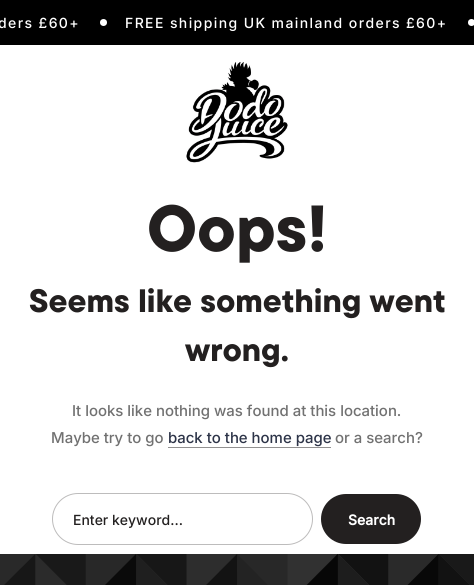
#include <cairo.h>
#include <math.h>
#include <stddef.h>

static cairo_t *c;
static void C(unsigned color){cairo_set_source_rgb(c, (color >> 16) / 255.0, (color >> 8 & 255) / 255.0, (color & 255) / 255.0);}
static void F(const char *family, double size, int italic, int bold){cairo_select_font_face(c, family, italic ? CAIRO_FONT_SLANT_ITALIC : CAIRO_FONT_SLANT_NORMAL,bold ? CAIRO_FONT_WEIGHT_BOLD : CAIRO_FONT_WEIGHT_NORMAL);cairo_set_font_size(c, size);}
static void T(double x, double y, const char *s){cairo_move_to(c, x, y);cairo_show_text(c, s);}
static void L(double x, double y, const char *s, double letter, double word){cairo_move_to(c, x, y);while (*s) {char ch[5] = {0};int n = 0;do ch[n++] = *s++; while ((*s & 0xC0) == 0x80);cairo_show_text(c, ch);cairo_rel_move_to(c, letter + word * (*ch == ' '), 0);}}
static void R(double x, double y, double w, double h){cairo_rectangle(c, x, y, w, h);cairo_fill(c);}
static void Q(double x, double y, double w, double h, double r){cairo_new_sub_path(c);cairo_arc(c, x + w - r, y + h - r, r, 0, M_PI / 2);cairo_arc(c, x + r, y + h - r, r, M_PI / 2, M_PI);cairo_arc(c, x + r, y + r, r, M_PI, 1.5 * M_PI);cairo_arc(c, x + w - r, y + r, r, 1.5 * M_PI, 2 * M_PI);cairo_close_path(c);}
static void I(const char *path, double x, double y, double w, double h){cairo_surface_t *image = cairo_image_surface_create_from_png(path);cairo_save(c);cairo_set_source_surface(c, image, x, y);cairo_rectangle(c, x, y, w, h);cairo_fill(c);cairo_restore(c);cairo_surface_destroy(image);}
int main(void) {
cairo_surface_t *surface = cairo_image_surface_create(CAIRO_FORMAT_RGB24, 474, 585);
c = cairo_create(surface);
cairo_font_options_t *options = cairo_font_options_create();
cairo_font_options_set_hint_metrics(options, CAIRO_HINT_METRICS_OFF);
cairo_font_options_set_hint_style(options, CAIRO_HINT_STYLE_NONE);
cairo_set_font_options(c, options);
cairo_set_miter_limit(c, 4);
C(0xffffff);
cairo_paint(c);
C(0x000000);
R(0,0,474,45);
F("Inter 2 Medium",14,0,0);
C(0xffffff);
L(-2,28,"ders £60+",1.4,0);
cairo_new_path(c);
cairo_arc(c,103.5,22.5,3.5,0,2 * M_PI);
cairo_fill(c);
L(125,28,"FREE shipping UK mainland orders £60+",1.4,0);
cairo_new_path(c);
cairo_arc(c,471.5,22.5,3.5,0,2 * M_PI);
cairo_fill(c);
I("1.png",186,61,102,102);
F("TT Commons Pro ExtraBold",65,0,0);
C(0x232020);
T(147,251,"Oops!");
F("TT Commons Pro ExtraBold",32.4,0,0);
T(29,312,"Seems like something went");
T(185,361,"wrong.");
F("Inter Medium",15,0,0);
C(0x717171);
T(72,416,"It looks like nothing was found at this location.");
T(51,443,"Maybe try to go");
C(0x2d3448);
T(168,443,"back to the home page");
C(0x919090);
R(168,447,163,1);
C(0x717171);
T(335,443,"or a search?");
Q(52.5,493.5,260,51,25.5);
C(0xbdbcbc);
cairo_set_line_width(c,1);
cairo_stroke(c);
F("Inter 2 Medium",14,0,0);
C(0x232020);
T(73,525,"Enter keyword...");
Q(321,494,100,50,25);
cairo_fill(c);
F("Inter",14,0,1);
C(0xffffff);
T(348,525,"Search");
I("2.png",0,554,474,31);
cairo_surface_write_to_png(surface, "o.png");
cairo_font_options_destroy(options);
cairo_destroy(c);
cairo_surface_destroy(surface);
return 0;
}
